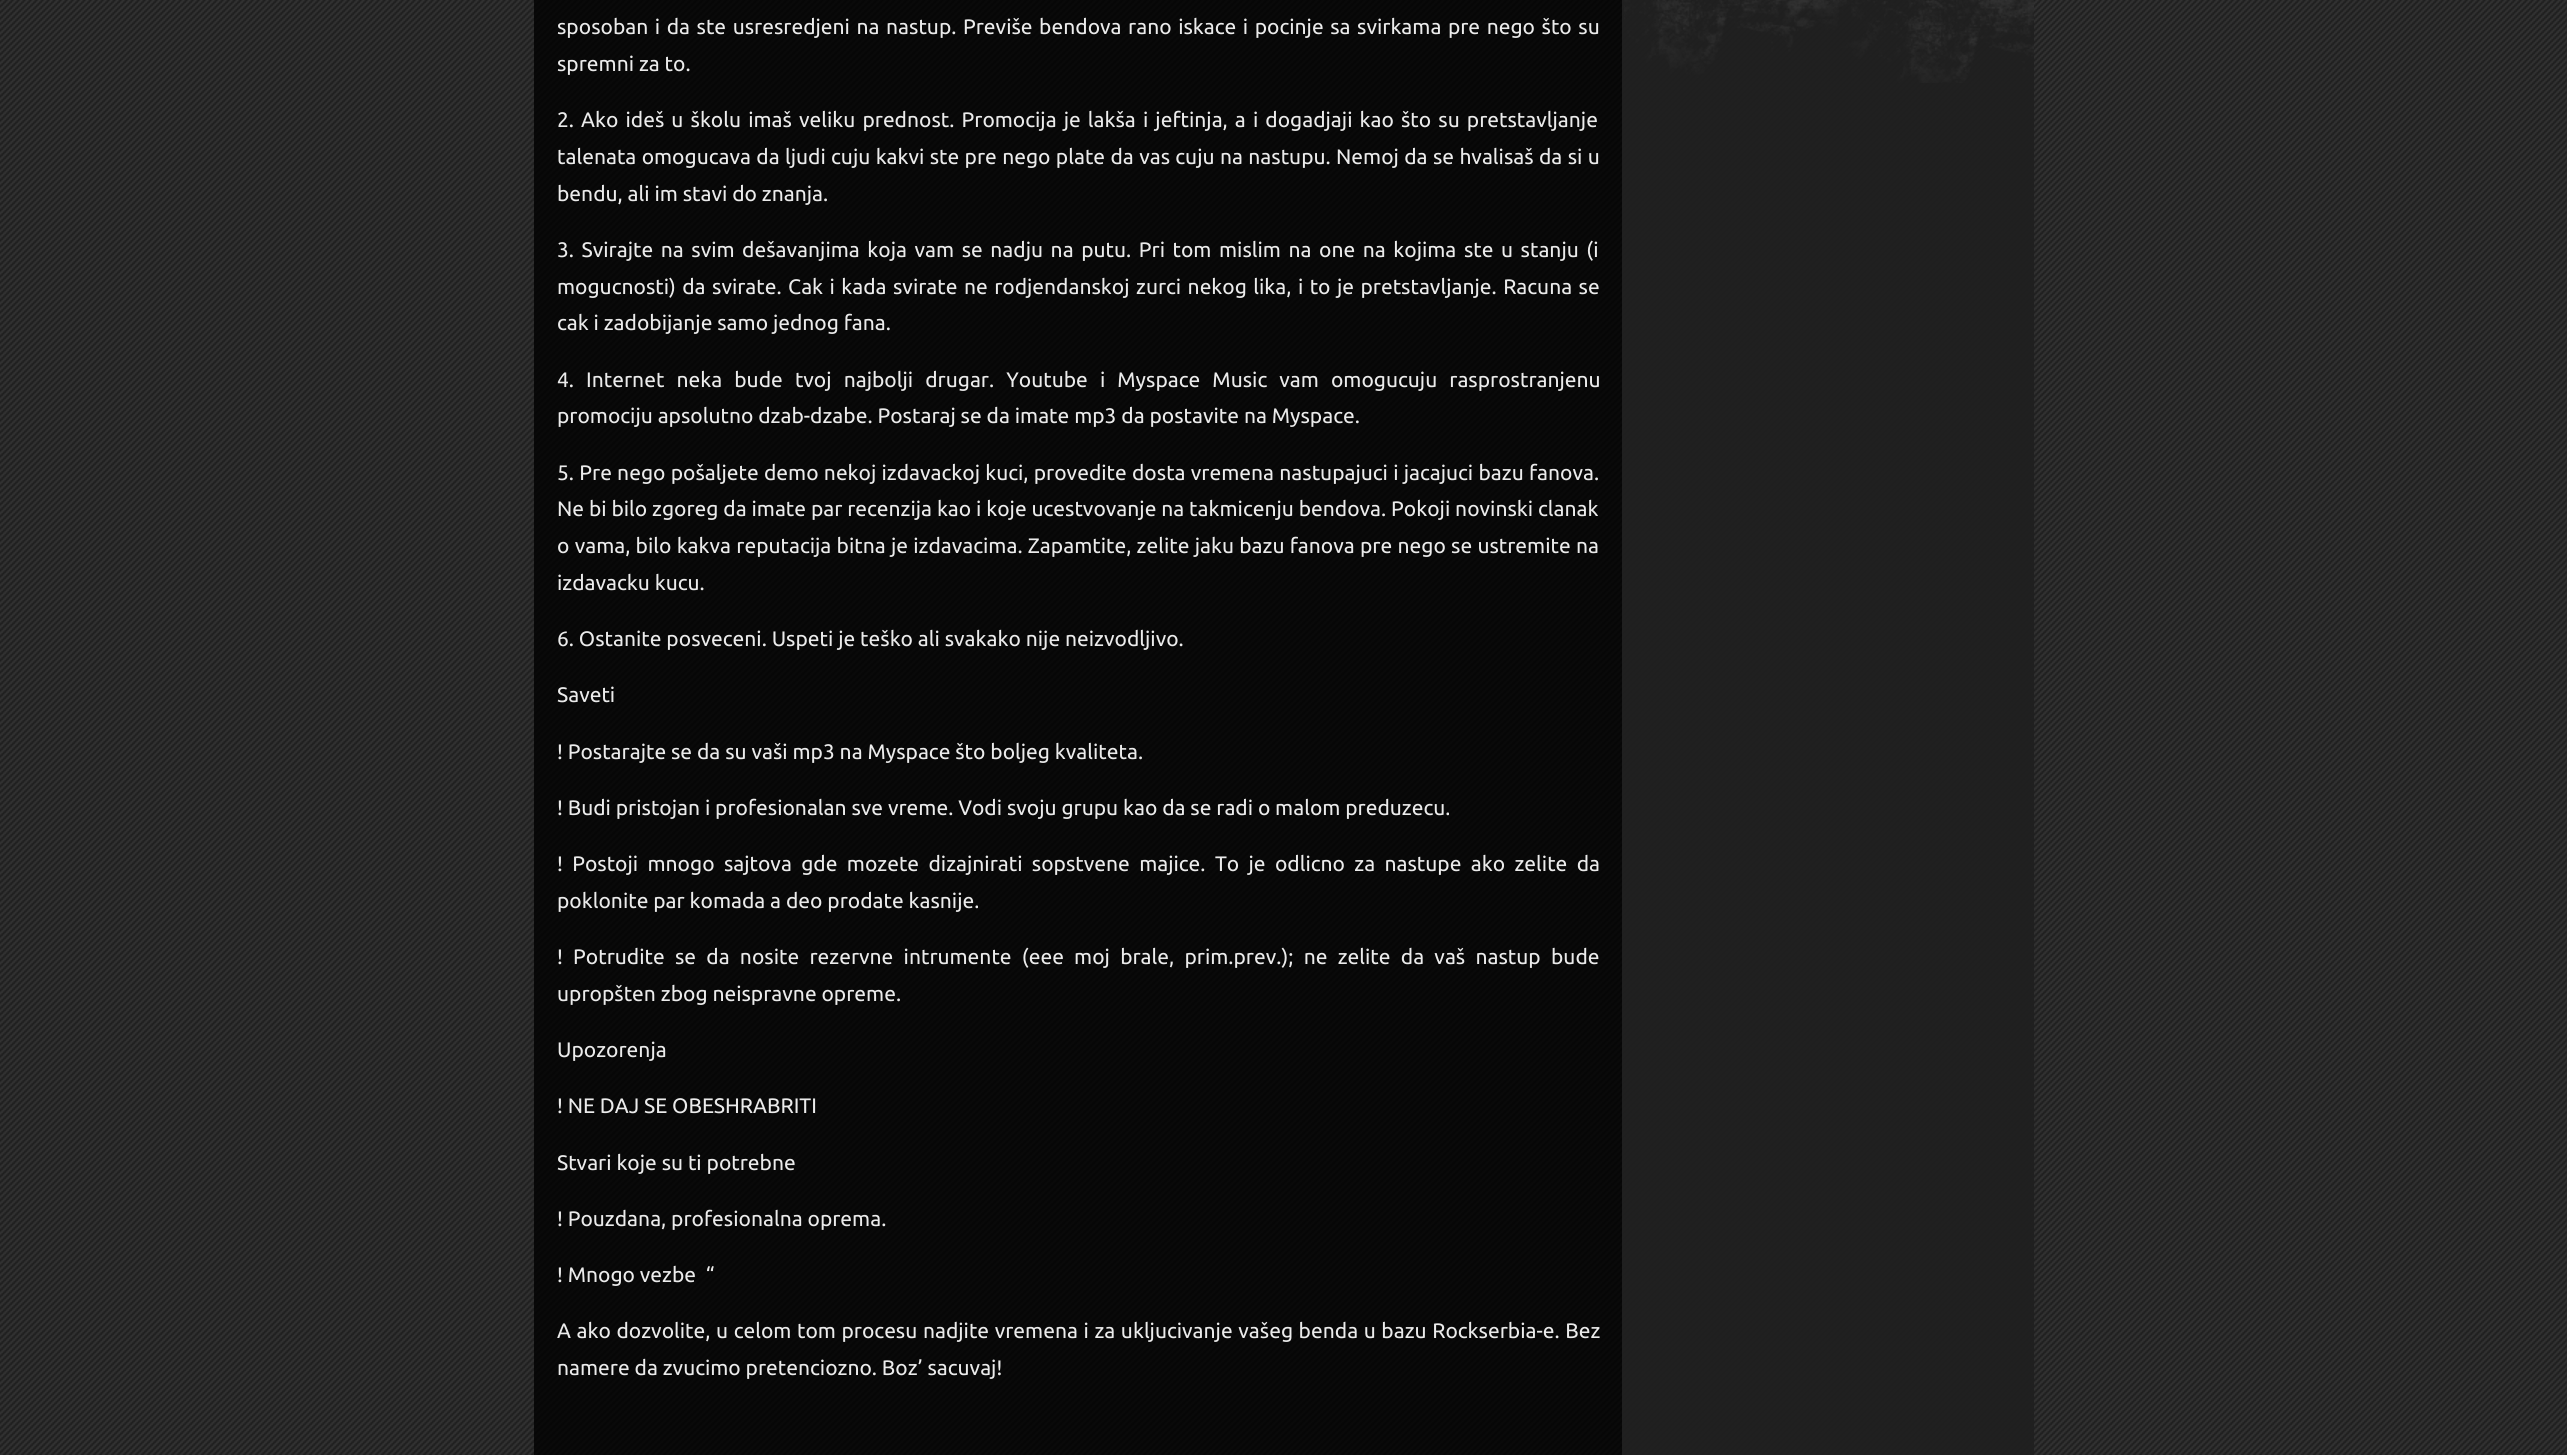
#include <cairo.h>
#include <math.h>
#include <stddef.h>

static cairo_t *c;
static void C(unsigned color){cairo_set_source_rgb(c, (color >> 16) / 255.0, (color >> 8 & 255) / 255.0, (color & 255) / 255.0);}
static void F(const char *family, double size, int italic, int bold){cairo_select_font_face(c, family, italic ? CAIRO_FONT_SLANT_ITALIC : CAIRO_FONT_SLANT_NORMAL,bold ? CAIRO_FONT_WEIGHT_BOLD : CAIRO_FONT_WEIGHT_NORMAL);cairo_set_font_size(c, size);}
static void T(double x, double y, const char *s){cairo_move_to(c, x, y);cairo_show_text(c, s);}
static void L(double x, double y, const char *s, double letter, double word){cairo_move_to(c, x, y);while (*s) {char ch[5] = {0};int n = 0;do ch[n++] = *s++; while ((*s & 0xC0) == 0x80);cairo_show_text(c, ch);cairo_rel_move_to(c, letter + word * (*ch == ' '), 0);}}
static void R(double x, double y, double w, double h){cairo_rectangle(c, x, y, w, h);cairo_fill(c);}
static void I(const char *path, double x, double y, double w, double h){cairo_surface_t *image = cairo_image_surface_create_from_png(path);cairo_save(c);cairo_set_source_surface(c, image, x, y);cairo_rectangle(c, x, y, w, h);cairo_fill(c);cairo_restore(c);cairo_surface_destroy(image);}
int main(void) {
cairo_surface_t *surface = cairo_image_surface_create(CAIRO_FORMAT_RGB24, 2567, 1455);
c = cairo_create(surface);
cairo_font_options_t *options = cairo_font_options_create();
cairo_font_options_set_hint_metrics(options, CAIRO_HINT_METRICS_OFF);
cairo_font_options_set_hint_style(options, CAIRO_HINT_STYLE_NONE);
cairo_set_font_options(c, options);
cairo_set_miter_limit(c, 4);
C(0x262626);
cairo_paint(c);
I("1.png",0,0,2567,1455);
cairo_set_source_rgba(c,0,0,0,0.8);
R(534,0,1500,1455);
F("Ubuntu",21,0,0);
C(0xebebeb);
L(557,34,"sposoban i da ste usresredjeni na nastup. Previše bendova rano iskace i pocinje sa svirkama pre nego što su",0,1.7);
T(557,71,"spremni za to.");
L(557,127,"2. Ako ideš u školu imaš veliku prednost. Promocija je lakša i jeftinja, a i dogadjaji kao što su pretstavljanje",0,2.25);
L(557,164,"talenata omogucava da ljudi cuju kakvi ste pre nego plate da vas cuju na nastupu. Nemoj da se hvalisaš da si u",0,.5);
T(557,201,"bendu, ali im stavi do znanja.");
L(557,257,"3. Svirajte na svim dešavanjima koja vam se nadju na putu. Pri tom mislim na one na kojima ste u stanju (i",0,2.7);
L(557,294,"mogucnosti) da svirate. Cak i kada svirate ne rodjendanskoj zurci nekog lika, i to je pretstavljanje. Racuna se",0,1.6);
T(557,330,"cak i zadobijanje samo jednog fana.");
L(557,387,"4. Internet neka bude tvoj najbolji drugar. Youtube i Myspace Music vam omogucuju rasprostranjenu",0,7.25);
T(557,423,"promociju apsolutno dzab-dzabe. Postaraj se da imate mp3 da postavite na Myspace.");
L(557,480,"5. Pre nego pošaljete demo nekoj izdavackoj kuci, provedite dosta vremena nastupajuci i jacajuci bazu fanova.",0,.4);
T(557,516,"Ne bi bilo zgoreg da imate par recenzija kao i koje ucestvovanje na takmicenju bendova. Pokoji novinski clanak");
L(557,553,"o vama, bilo kakva reputacija bitna je izdavacima. Zapamtite, zelite jaku bazu fanova pre nego se ustremite na",0,.4);
T(557,590,"izdavacku kucu.");
T(557,646,"6. Ostanite posveceni. Uspeti je teško ali svakako nije neizvodljivo.");
T(557,702,"Saveti");
T(557,759,"! Postarajte se da su vaši mp3 na Myspace što boljeg kvaliteta.");
T(557,815,"! Budi pristojan i profesionalan sve vreme. Vodi svoju grupu kao da se radi o malom preduzecu.");
L(557,871,"! Postoji mnogo sajtova gde mozete dizajnirati sopstvene majice. To je odlicno za nastupe ako zelite da",0,4.5);
T(557,908,"poklonite par komada a deo prodate kasnije.");
L(557,964,"! Potrudite se da nosite rezervne intrumente (eee moj brale, prim.prev.); ne zelite da vaš nastup bude",0,5.4);
T(557,1001,"upropšten zbog neispravne opreme.");
T(557,1057,"Upozorenja");
T(557,1113,"! NE DAJ SE OBESHRABRITI");
T(557,1170,"Stvari koje su ti potrebne");
T(557,1226,"! Pouzdana, profesionalna oprema.");
T(557,1282,"! Mnogo vezbe  “");
L(557,1338,"A ako dozvolite, u celom tom procesu nadjite vremena i za ukljucivanje vašeg benda u bazu Rockserbia-e. Bez",0,.75);
T(557,1375,"namere da zvucimo pretenciozno. Boz’ sacuvaj!");
cairo_set_source_rgba(c,0.149,0.149,0.149,0.8);
R(1622,0,412,1455);
I("2.png",1624,0,410,83);
cairo_surface_write_to_png(surface, "o.png");
cairo_font_options_destroy(options);
cairo_destroy(c);
cairo_surface_destroy(surface);
return 0;
}
